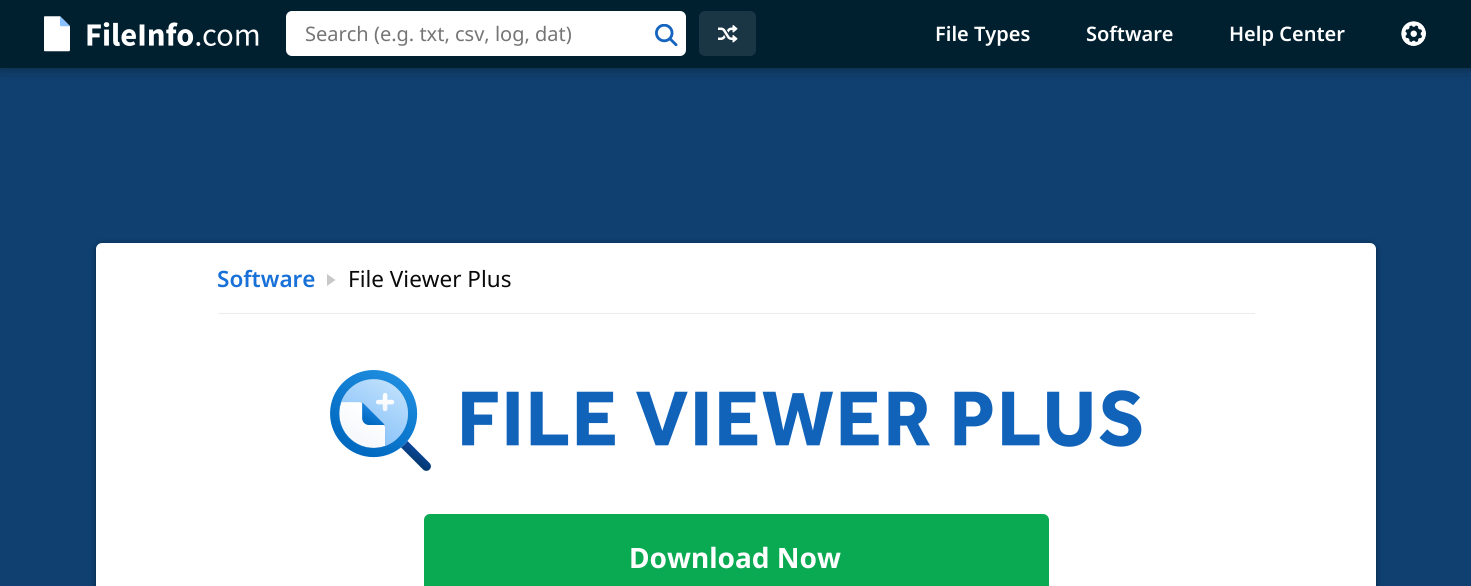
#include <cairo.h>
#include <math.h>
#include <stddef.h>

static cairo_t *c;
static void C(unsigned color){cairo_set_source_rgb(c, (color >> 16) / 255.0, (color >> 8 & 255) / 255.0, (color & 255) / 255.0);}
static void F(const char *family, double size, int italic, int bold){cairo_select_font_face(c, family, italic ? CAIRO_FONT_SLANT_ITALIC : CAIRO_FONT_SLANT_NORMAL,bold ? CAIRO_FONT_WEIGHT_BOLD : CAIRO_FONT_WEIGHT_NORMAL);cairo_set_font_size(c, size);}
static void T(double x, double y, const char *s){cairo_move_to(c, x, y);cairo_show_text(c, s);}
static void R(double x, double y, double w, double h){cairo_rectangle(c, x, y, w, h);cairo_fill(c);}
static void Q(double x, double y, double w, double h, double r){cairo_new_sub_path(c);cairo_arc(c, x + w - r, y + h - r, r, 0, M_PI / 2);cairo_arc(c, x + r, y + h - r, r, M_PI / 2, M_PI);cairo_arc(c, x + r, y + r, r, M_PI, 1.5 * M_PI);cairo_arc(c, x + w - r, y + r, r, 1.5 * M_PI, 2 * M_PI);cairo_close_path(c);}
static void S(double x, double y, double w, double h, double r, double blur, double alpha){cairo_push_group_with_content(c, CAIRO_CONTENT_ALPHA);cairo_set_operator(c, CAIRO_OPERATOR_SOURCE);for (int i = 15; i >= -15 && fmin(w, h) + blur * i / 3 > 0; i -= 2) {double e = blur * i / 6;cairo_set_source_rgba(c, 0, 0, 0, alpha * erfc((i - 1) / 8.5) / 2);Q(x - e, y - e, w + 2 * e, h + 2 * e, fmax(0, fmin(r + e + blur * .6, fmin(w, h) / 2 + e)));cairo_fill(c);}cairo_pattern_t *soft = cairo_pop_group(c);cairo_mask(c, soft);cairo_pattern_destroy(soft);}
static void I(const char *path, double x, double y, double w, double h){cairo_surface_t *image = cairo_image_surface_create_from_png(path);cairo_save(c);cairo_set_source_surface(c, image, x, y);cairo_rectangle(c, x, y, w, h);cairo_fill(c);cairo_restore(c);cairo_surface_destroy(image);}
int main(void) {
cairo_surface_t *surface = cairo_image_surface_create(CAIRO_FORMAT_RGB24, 1471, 586);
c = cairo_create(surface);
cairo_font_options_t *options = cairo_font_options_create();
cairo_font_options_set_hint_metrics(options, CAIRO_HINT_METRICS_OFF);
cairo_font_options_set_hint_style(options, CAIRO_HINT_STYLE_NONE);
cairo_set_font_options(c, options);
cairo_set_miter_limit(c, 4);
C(0x104070);
cairo_paint(c);
C(0x0a0a0a);
S(0,0,1471,68,0,6,.5);
C(0x002030);
R(0,0,1471,68);
I("1.png",44,16,215,36);
C(0xffffff);
Q(286,11,400,45,6);
cairo_fill(c);
F("Noto Sans",20,0,0);
C(0x757575);
T(305,41,"Search (e.g. txt, csv, log, dat)");
I("2.png",655,24,23,22);
C(0x1a3645);
Q(699,11,57,45,6);
cairo_fill(c);
I("3.png",718,25,20,18);
F("Noto Sans SemiBold",20,0,0);
C(0xffffff);
T(935,41,"File Types");
T(1086,41,"Software");
T(1229,41,"Help Center");
I("4.png",1401,21,25,25);
C(0x002244);
S(96,244,1280,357,6,3,1);
C(0xffffff);
Q(96,243,1280,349,6);
cairo_fill(c);
F("Noto Sans SemiBold",22.5,0,0);
C(0x1871d8);
T(217,287,"Software");
C(0xc8c8c8);
cairo_new_path(c);
cairo_move_to(c,327,286);
cairo_line_to(c,335.5,280);
cairo_line_to(c,327,274);
cairo_close_path(c);
cairo_fill(c);
F("Noto Sans",22.5,0,0);
C(0x0a0a0a);
T(348,287,"File Viewer Plus");
C(0xececef);
R(218,313,1037,1);
I("5.png",330,370,812,101);
C(0x09aa51);
Q(424,514,625,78,6);
cairo_fill(c);
F("Noto Sans",28,0,1);
C(0xffffff);
T(629,568,"Download Now");
cairo_surface_write_to_png(surface, "o.png");
cairo_font_options_destroy(options);
cairo_destroy(c);
cairo_surface_destroy(surface);
return 0;
}
